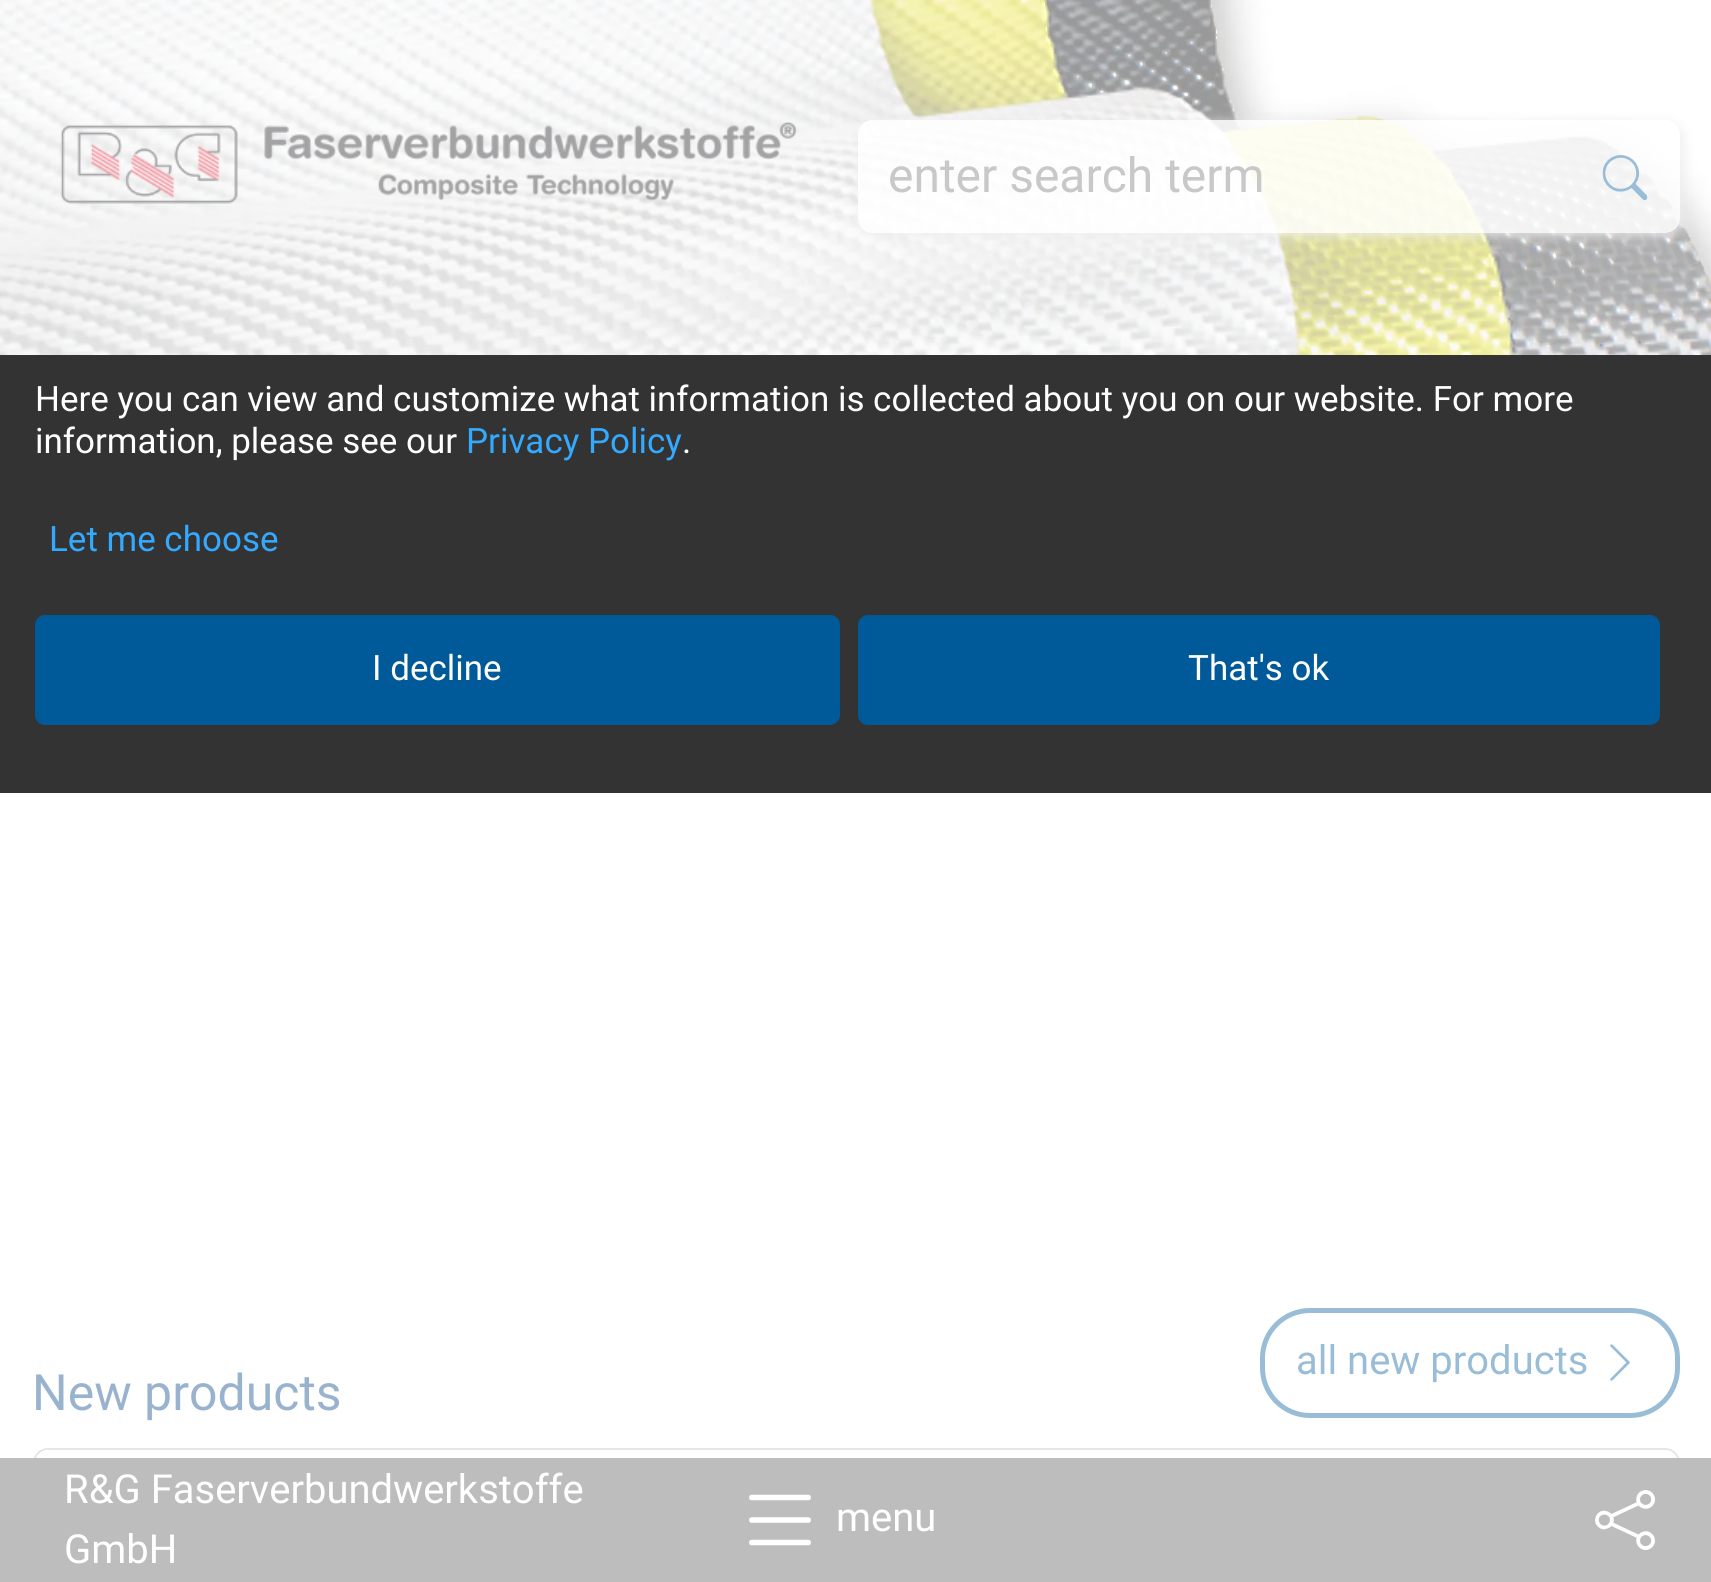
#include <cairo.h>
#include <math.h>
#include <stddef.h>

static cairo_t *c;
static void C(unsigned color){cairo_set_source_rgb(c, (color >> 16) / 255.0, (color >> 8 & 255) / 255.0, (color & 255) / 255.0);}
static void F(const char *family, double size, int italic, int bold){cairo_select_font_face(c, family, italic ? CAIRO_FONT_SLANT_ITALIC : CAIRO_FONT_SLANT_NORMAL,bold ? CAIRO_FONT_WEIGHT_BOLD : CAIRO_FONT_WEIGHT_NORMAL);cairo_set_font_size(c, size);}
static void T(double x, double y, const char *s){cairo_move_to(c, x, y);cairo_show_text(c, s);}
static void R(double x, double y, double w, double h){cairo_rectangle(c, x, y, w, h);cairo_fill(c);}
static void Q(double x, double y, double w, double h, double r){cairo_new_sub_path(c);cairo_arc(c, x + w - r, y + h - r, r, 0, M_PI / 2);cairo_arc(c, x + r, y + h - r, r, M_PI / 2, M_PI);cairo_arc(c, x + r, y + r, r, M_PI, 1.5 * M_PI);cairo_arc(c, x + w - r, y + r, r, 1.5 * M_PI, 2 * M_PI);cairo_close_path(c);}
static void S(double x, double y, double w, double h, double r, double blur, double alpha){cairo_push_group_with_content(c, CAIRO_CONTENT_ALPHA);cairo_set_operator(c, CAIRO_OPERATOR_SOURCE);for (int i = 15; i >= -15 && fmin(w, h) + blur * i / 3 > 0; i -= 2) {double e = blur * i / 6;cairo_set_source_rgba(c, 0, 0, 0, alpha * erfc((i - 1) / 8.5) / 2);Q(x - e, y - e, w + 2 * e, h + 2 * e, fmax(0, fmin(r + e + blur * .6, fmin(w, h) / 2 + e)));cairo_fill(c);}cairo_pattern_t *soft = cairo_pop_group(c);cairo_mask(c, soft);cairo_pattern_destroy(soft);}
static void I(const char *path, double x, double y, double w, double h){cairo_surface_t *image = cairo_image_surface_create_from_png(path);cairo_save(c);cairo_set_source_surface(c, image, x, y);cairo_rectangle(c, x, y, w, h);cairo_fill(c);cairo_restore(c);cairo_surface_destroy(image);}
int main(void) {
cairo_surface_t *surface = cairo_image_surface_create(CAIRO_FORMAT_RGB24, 1711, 1582);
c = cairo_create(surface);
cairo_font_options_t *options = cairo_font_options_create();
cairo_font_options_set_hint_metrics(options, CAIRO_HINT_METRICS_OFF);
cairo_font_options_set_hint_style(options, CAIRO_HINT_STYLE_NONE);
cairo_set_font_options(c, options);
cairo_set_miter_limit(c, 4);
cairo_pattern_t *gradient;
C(0xffffff);
cairo_paint(c);
I("1.png",0,0,1711,355);
I("2.png",60,121,737,83);
cairo_save(c);
cairo_set_fill_rule(c,CAIRO_FILL_RULE_EVEN_ODD);
cairo_new_path(c);
cairo_move_to(c,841,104);
cairo_line_to(c,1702,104);
cairo_line_to(c,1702,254);
cairo_line_to(c,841,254);
cairo_close_path(c);
cairo_move_to(c,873,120);
cairo_line_to(c,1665,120);
cairo_curve_to(c,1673.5,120,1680,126.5,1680,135);
cairo_line_to(c,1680,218);
cairo_curve_to(c,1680,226.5,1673.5,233,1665,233);
cairo_line_to(c,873,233);
cairo_curve_to(c,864.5,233,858,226.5,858,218);
cairo_line_to(c,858,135);
cairo_curve_to(c,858,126.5,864.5,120,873,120);
cairo_close_path(c);
cairo_clip(c);
C(0xededed);
S(860,123,823,112,15,6,1);
cairo_restore(c);
cairo_set_source_rgba(c,1,1,1,0.85);
cairo_new_path(c);
cairo_move_to(c,873,120);
cairo_line_to(c,1573,120);
cairo_line_to(c,1573,233);
cairo_line_to(c,873,233);
cairo_curve_to(c,864.5,233,858,226.5,858,218);
cairo_line_to(c,858,135);
cairo_curve_to(c,858,126.5,864.5,120,873,120);
cairo_close_path(c);
cairo_fill(c);
F("Roboto",48,0,0);
C(0xc8c8c8);
T(888,192,"enter search term");
cairo_set_source_rgba(c,1,1,1,0.85);
cairo_new_path(c);
cairo_move_to(c,1573,120);
cairo_line_to(c,1665,120);
cairo_curve_to(c,1673.5,120,1680,126.5,1680,135);
cairo_line_to(c,1680,218);
cairo_curve_to(c,1680,226.5,1673.5,233,1665,233);
cairo_line_to(c,1573,233);
cairo_close_path(c);
cairo_fill(c);
I("3.png",1602,155,46,45);
Q(1262.5,1310.5,415,105,47.5);
C(0x99bdd6);
cairo_set_line_width(c,5);
cairo_stroke(c);
F("Roboto",40,0,0);
T(1296,1374,"all new products");
I("4.png",1610,1344,20,37);
F("Roboto",50,0,0);
C(0x99b3ce);
T(32,1410,"New products");
Q(34.5,1449.5,1644,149,13.5);
C(0xe5e5e5);
cairo_set_line_width(c,3);
cairo_stroke(c);
cairo_save(c);
Q(35,1450,1643,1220,13);
cairo_clip(c);
gradient = cairo_pattern_create_linear(38,235,580,1453);
cairo_pattern_add_color_stop_rgba(gradient,0,1,1,1,1);
cairo_pattern_add_color_stop_rgba(gradient,.6,1,1,1,1);
cairo_pattern_add_color_stop_rgba(gradient,1,0.973,0.973,0.973,1);
cairo_set_source(c,gradient);
cairo_pattern_destroy(gradient);
R(38,1450,10,3);
gradient = cairo_pattern_create_linear(-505,1452,37,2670);
cairo_pattern_add_color_stop_rgba(gradient,0,1,1,1,1);
cairo_pattern_add_color_stop_rgba(gradient,.6,1,1,1,1);
cairo_pattern_add_color_stop_rgba(gradient,1,0.973,0.973,0.973,1);
cairo_set_source(c,gradient);
cairo_pattern_destroy(gradient);
R(36,1453,2,5);
gradient = cairo_pattern_create_linear(38,1452,580,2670);
cairo_pattern_add_color_stop_rgba(gradient,0,1,1,1,1);
cairo_pattern_add_color_stop_rgba(gradient,.6,1,1,1,1);
cairo_pattern_add_color_stop_rgba(gradient,1,0.973,0.973,0.973,1);
cairo_set_source(c,gradient);
cairo_pattern_destroy(gradient);
R(38,1453,542,5);
cairo_restore(c);
C(0xffffff);
cairo_set_fill_rule(c,CAIRO_FILL_RULE_EVEN_ODD);
cairo_new_path(c);
cairo_move_to(c,35,1463);
cairo_line_to(c,35,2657);
cairo_curve_to(c,35,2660,36,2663,38,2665);
cairo_line_to(c,38,1455);
cairo_curve_to(c,36,1457,35,1460,35,1463);
cairo_close_path(c);
cairo_move_to(c,48,1450);
cairo_curve_to(c,45,1450,42,1451,40,1453);
cairo_line_to(c,580,1453);
cairo_line_to(c,580,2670);
cairo_line_to(c,583,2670);
cairo_line_to(c,583,1450);
cairo_close_path(c);
cairo_fill(c);
cairo_set_fill_rule(c,CAIRO_FILL_RULE_WINDING);
cairo_new_path(c);
cairo_move_to(c,583,1450);
cairo_line_to(c,583,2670);
cairo_line_to(c,586,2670);
cairo_line_to(c,586,1453);
cairo_line_to(c,1127,1453);
cairo_line_to(c,1127,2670);
cairo_line_to(c,1130,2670);
cairo_line_to(c,1130,1450);
cairo_close_path(c);
cairo_fill(c);
cairo_save(c);
Q(35,1450,1643,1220,13);
cairo_clip(c);
gradient = cairo_pattern_create_linear(1133,235,1675,1453);
cairo_pattern_add_color_stop_rgba(gradient,0,1,1,1,1);
cairo_pattern_add_color_stop_rgba(gradient,.6,1,1,1,1);
cairo_pattern_add_color_stop_rgba(gradient,1,0.973,0.973,0.973,1);
cairo_set_source(c,gradient);
cairo_pattern_destroy(gradient);
R(1665,1450,10,3);
gradient = cairo_pattern_create_linear(1133,1452,1675,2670);
cairo_pattern_add_color_stop_rgba(gradient,0,1,1,1,1);
cairo_pattern_add_color_stop_rgba(gradient,.6,1,1,1,1);
cairo_pattern_add_color_stop_rgba(gradient,1,0.973,0.973,0.973,1);
cairo_set_source(c,gradient);
cairo_pattern_destroy(gradient);
R(1133,1453,542,5);
gradient = cairo_pattern_create_linear(1675,1452,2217,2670);
cairo_pattern_add_color_stop_rgba(gradient,0,1,1,1,1);
cairo_pattern_add_color_stop_rgba(gradient,.6,1,1,1,1);
cairo_pattern_add_color_stop_rgba(gradient,1,0.973,0.973,0.973,1);
cairo_set_source(c,gradient);
cairo_pattern_destroy(gradient);
R(1675,1453,2,5);
cairo_restore(c);
cairo_set_fill_rule(c,CAIRO_FILL_RULE_EVEN_ODD);
cairo_new_path(c);
cairo_move_to(c,1678,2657);
cairo_line_to(c,1678,1463);
cairo_curve_to(c,1678,1460,1677,1457,1675,1455);
cairo_line_to(c,1675,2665);
cairo_curve_to(c,1677,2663,1678,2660,1678,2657);
cairo_close_path(c);
cairo_move_to(c,1130,1450);
cairo_line_to(c,1665,1450);
cairo_curve_to(c,1668,1450,1671,1451,1673,1453);
cairo_line_to(c,1133,1453);
cairo_line_to(c,1133,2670);
cairo_line_to(c,1130,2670);
cairo_close_path(c);
cairo_fill(c);
C(0xbdbdbd);
R(0,1458,1711,124);
F("Roboto",40,0,0);
C(0xffffff);
T(64,1503,"R&G Faserverbundwerkstoffe");
T(64,1563,"GmbH");
I("5.png",749,1494,62,52);
T(836,1531,"menu");
I("6.png",1595,1490,60,60);
C(0x333333);
R(0,355,1711,438);
F("Roboto",35,0,0);
C(0xffffff);
T(35,411,"Here you can view and customize what information is collected about you on our website. For more");
T(35,453,"information, please see our");
C(0x33aaff);
T(466,453,"Privacy Policy");
C(0xffffff);
T(682,453,".");
C(0x33aaff);
T(49,551,"Let me choose");
C(0x005999);
Q(35,615,805,110,10);
cairo_fill(c);
C(0xffffff);
T(372,680,"I decline");
C(0x005999);
Q(858,615,802,110,10);
cairo_fill(c);
C(0xffffff);
T(1188,680,"That's ok");
cairo_surface_write_to_png(surface, "o.png");
cairo_font_options_destroy(options);
cairo_destroy(c);
cairo_surface_destroy(surface);
return 0;
}
